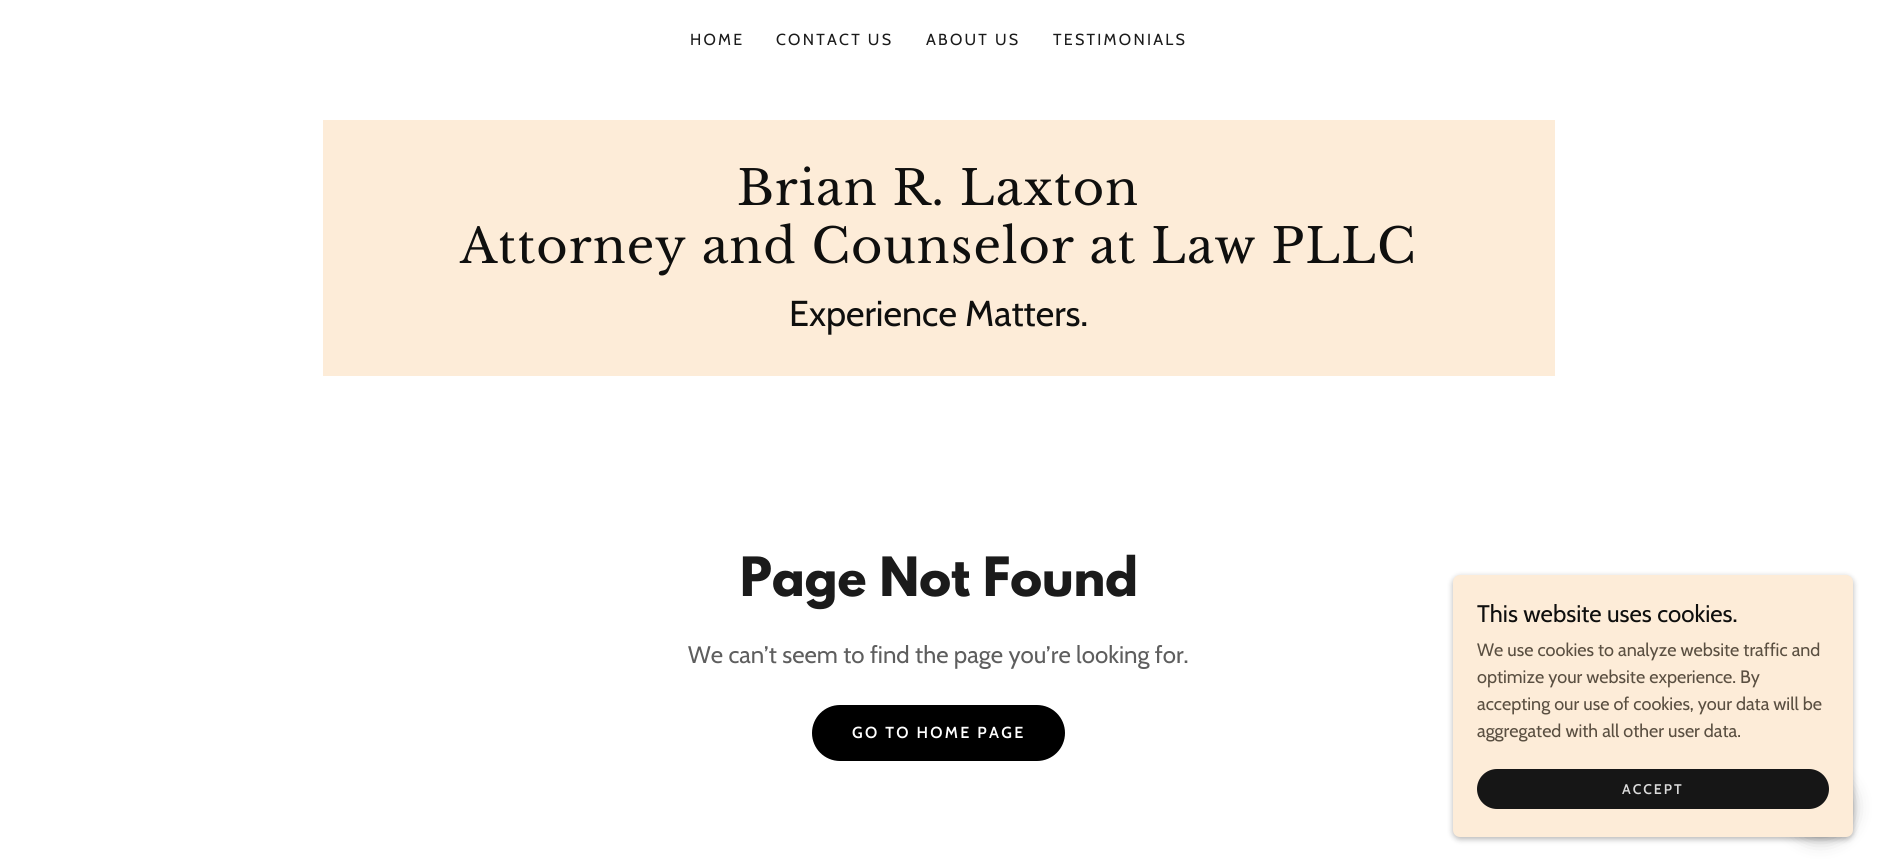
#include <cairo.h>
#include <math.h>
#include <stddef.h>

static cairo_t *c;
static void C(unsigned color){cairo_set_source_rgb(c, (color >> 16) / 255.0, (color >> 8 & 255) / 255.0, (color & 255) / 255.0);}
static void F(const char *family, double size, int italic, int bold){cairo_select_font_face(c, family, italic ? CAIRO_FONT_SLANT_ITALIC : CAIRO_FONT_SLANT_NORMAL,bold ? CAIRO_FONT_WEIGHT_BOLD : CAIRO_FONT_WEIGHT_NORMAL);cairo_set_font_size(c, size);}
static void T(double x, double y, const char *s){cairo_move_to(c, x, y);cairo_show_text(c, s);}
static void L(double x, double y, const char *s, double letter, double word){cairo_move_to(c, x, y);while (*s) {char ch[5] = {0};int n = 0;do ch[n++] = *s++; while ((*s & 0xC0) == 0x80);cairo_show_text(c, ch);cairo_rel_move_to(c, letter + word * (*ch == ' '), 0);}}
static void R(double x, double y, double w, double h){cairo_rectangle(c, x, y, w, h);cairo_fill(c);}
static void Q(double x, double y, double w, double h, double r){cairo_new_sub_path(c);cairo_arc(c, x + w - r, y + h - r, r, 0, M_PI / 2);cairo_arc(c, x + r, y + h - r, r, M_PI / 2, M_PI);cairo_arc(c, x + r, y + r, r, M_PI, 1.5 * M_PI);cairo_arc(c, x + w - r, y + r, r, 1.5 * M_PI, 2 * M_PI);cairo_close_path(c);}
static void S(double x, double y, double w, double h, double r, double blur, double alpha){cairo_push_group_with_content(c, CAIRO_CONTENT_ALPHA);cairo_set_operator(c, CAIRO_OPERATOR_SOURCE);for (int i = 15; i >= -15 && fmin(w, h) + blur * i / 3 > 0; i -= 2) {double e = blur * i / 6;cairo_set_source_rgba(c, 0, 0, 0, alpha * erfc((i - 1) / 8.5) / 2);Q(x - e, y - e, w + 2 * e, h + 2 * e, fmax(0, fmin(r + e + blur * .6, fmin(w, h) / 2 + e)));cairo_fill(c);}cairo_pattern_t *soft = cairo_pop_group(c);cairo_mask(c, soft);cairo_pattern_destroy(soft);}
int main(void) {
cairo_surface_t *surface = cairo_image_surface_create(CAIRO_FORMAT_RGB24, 1877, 861);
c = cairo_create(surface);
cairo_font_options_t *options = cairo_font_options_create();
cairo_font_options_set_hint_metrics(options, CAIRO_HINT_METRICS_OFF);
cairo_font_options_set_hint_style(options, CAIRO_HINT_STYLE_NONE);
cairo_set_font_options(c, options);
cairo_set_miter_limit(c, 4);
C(0xffffff);
cairo_paint(c);
F("Cabin",16,0,0);
C(0x1b1b1b);
L(690,45,"HOME",2.25,0);
L(776,45,"CONTACT US",2.25,0);
L(926,45,"ABOUT US",2.25,0);
L(1053,45,"TESTIMONIALS",2.25,0);
C(0xfdecd8);
R(323,120,1232,256);
F("Libre Baskerville",48,0,0);
C(0x0f0f0e);
L(737,205,"Brian R. Laxton",1,0);
L(460,263,"Attorney and Counselor at Law PLLC",1,0);
F("Cabin",36,0,0);
T(789,326,"Experience Matters.");
F("League Spartan",48,0,1);
C(0x1b1b1b);
T(740,596,"Page Not Found");
F("Cabin",24,0,0);
C(0x5e5e5e);
T(688,663,"We can’t seem to find the page you’re looking for.");
C(0x000000);
Q(812,705,253,56,28);
cairo_fill(c);
F("Cabin SemiBold",16,0,0);
C(0xffffff);
L(852,738,"GO TO HOME PAGE",2.25,0);
C(0x000000);
S(1453,577,400,262,7,3,.3);
S(1788,775,65,65,32.5,9,.25);
C(0xfdecd8);
Q(1453,575,400,262,7);
cairo_fill(c);
F("Cabin",24,0,0);
C(0x0f0f0e);
T(1477,622,"This website uses cookies.");
F("Cabin",18,0,0);
C(0x5a4f41);
T(1477,656,"We use cookies to analyze website traffic and");
T(1477,683,"optimize your website experience. By");
T(1477,710,"accepting our use of cookies, your data will be");
T(1477,737,"aggregated with all other user data.");
C(0x161616);
Q(1477,769,352,40,20);
cairo_fill(c);
F("Cabin SemiBold",14,0,0);
C(0xdbdbdb);
L(1622,794,"ACCEPT",2,0);
cairo_surface_write_to_png(surface, "o.png");
cairo_font_options_destroy(options);
cairo_destroy(c);
cairo_surface_destroy(surface);
return 0;
}
